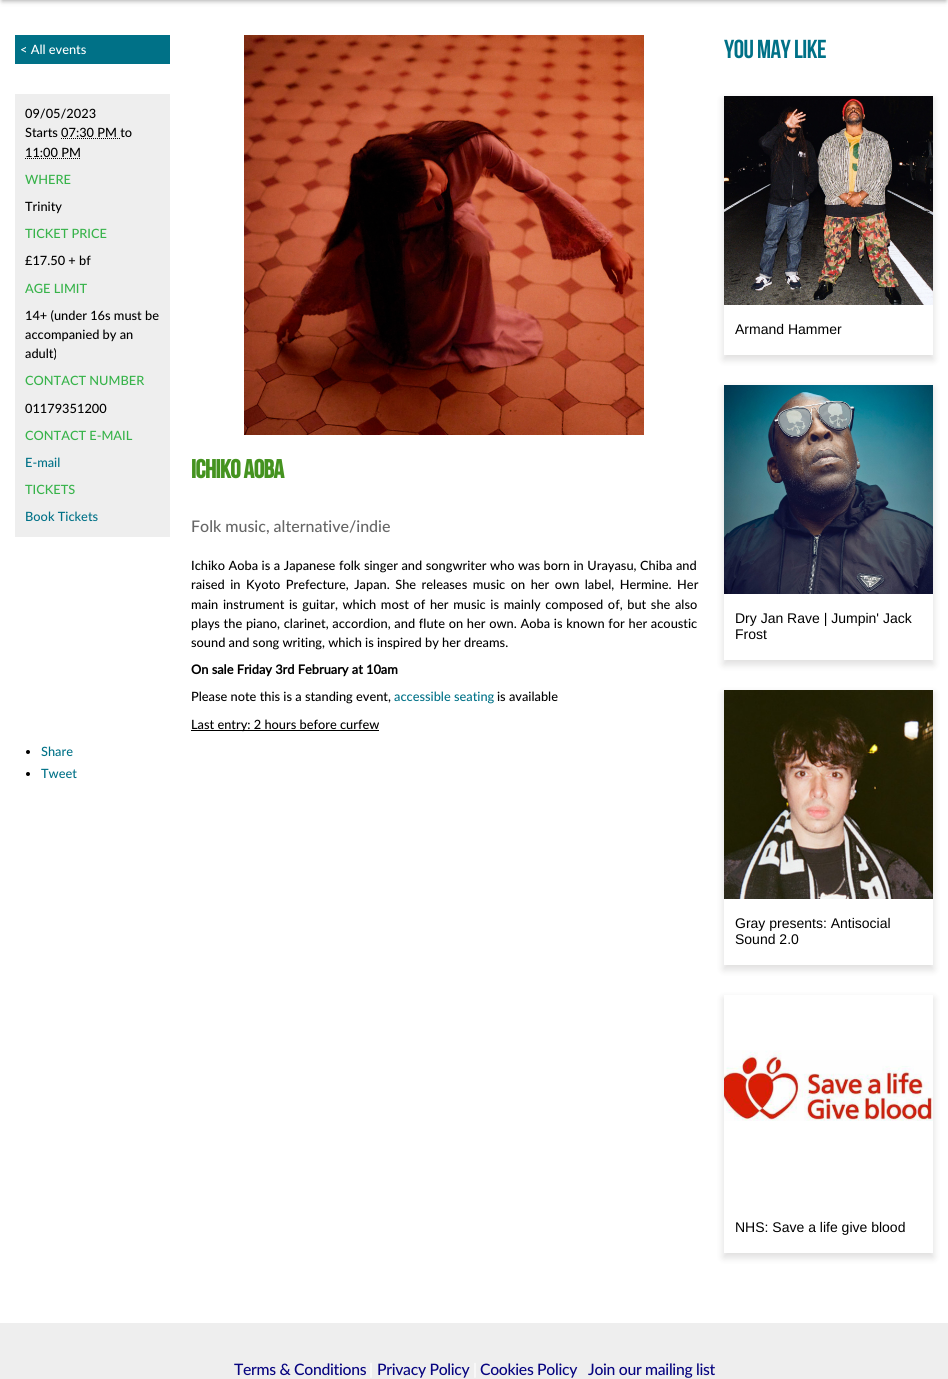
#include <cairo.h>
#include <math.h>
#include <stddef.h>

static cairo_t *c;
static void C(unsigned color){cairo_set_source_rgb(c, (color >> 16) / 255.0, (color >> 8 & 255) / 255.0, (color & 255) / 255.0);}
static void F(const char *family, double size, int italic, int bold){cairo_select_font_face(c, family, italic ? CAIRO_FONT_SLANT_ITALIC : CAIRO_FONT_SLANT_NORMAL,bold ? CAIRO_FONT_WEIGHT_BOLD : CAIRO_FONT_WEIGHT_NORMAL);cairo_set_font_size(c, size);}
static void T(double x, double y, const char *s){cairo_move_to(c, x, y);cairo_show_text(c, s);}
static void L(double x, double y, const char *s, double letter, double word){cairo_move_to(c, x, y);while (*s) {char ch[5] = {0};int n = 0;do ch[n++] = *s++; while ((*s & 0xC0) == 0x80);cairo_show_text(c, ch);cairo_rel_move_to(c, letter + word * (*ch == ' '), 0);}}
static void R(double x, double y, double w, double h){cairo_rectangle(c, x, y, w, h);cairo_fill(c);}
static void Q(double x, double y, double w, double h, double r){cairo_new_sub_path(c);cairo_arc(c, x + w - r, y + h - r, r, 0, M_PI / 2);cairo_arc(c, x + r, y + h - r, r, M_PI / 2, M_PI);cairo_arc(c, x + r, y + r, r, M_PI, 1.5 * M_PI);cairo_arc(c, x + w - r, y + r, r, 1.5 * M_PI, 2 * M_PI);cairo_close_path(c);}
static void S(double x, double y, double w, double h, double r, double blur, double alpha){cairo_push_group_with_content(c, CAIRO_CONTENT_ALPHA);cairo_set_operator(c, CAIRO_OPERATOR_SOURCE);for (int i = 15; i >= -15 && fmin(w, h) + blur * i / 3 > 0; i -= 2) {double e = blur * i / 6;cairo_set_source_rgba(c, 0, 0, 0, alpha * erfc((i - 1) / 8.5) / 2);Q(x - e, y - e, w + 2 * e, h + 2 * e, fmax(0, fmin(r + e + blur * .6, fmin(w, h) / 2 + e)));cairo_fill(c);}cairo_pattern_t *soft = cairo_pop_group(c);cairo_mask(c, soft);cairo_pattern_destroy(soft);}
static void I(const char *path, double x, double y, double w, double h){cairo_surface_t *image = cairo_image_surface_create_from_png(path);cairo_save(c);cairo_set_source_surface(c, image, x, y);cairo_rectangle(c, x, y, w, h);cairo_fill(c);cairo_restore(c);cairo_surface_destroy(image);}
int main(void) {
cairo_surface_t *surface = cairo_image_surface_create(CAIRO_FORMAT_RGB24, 948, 1379);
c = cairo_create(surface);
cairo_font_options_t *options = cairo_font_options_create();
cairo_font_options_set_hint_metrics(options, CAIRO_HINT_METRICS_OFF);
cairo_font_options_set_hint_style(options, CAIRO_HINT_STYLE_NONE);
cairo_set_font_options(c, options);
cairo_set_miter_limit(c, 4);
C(0xffffff);
cairo_paint(c);
C(0x323232);
S(2,-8,944,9,0,2.5,.41);
C(0x007187);
R(15,35,155,29);
F("Lato Medium",12.8,0,0);
C(0xffffff);
T(20,54,"< All events");
C(0xeeeeee);
R(15,94,155,443);
C(0x000000);
T(25,118,"09/05/2023");
T(25,137,"Starts 07:30 PM to");
cairo_new_path(c);
cairo_move_to(c,61,138.5);
cairo_line_to(c,117,138.5);
cairo_set_line_width(c,1);
cairo_set_dash(c,(double[]){1,1},2,0);
cairo_stroke(c);
cairo_new_path(c);
cairo_move_to(c,117,138.5);
cairo_line_to(c,118,138.5);
cairo_move_to(c,119,138.5);
cairo_line_to(c,120,138.5);
cairo_set_dash(c,NULL,0,0);
cairo_stroke(c);
T(25,157,"11:00 PM");
cairo_new_path(c);
cairo_move_to(c,25,158.5);
cairo_line_to(c,81,158.5);
cairo_set_dash(c,(double[]){1,1},2,0);
cairo_stroke(c);
C(0x37b34a);
T(25,184,"WHERE");
C(0x000000);
T(25,211,"Trinity");
C(0x37b34a);
T(25,238,"TICKET PRICE");
C(0x000000);
T(25,265,"£17.50 + bf");
C(0x37b34a);
T(25,293,"AGE LIMIT");
C(0x000000);
T(25,320,"14+ (under 16s must be");
T(25,339,"accompanied by an");
T(25,358,"adult)");
C(0x37b34a);
T(25,385,"CONTACT NUMBER");
C(0x000000);
T(25,413,"01179351200");
C(0x37b34a);
T(25,440,"CONTACT E-MAIL");
C(0x007187);
T(25,467,"E-mail");
C(0x37b34a);
T(25,494,"TICKETS");
C(0x007187);
T(25,521,"Book Tickets");
I("1.png",244,35,400,400);
F("Bebas Neue",26,0,1);
C(0x459320);
L(191,478,"Ichiko Aoba",-.5,0);
F("Lato Medium",16,0,0);
C(0x666666);
T(191,532,"Folk music, alternative/indie");
F("Lato Medium",12.8,0,0);
C(0x000000);
L(191,570,"Ichiko Aoba is a Japanese folk singer and songwriter who was born in Urayasu, Chiba and",0,.3);
L(191,589,"raised in Kyoto Prefecture, Japan. She releases music on her own label, Hermine. Her",0,2.25);
L(191,609,"main instrument is guitar, which most of her music is mainly composed of, but she also",0,1.4);
L(191,628,"plays the piano, clarinet, accordion, and flute on her own. Aoba is known for her acoustic",0,.5);
T(191,647,"sound and song writing, which is inspired by her dreams.");
F("Lato",12.8,0,1);
T(191,674,"On sale Friday 3rd February at 10am");
F("Lato Medium",12.8,0,0);
T(191,701,"Please note this is a standing event,");
C(0x007187);
T(394,701,"accessible seating");
C(0x000000);
T(497,701,"is available");
R(191,730,188,1);
T(191,729,"Last entry: 2 hours before curfew");
cairo_new_path(c);
cairo_arc(c,28,752,2,0,2 * M_PI);
cairo_fill(c);
C(0x007187);
T(41,756,"Share");
C(0x000000);
cairo_new_path(c);
cairo_arc(c,28,774,2,0,2 * M_PI);
cairo_fill(c);
C(0x007187);
T(41,778,"Tweet");
F("Bebas Neue",26,0,0);
L(724,58,"YOU MAY LIKE",-.5,0);
cairo_save(c);
cairo_set_fill_rule(c,CAIRO_FILL_RULE_EVEN_ODD);
cairo_new_path(c);
cairo_move_to(c,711,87);
cairo_line_to(c,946,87);
cairo_line_to(c,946,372);
cairo_line_to(c,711,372);
cairo_close_path(c);
cairo_move_to(c,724,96);
cairo_line_to(c,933,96);
cairo_line_to(c,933,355);
cairo_line_to(c,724,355);
cairo_close_path(c);
cairo_clip(c);
C(0x120d0a);
S(723,99,211,261,0,3.5,.13);
cairo_restore(c);
I("2.png",724,96,209,209);
F("Liberation Sans",14,0,0);
C(0x000000);
T(735,334,"Armand Hammer");
cairo_save(c);
cairo_set_fill_rule(c,CAIRO_FILL_RULE_EVEN_ODD);
cairo_new_path(c);
cairo_move_to(c,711,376);
cairo_line_to(c,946,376);
cairo_line_to(c,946,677);
cairo_line_to(c,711,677);
cairo_close_path(c);
cairo_move_to(c,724,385);
cairo_line_to(c,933,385);
cairo_line_to(c,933,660);
cairo_line_to(c,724,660);
cairo_close_path(c);
cairo_clip(c);
C(0x120d0a);
S(723,388,211,277,0,3.5,.13);
cairo_restore(c);
I("3.png",724,385,209,209);
T(735,623,"Dry Jan Rave | Jumpin' Jack");
T(735,639,"Frost");
cairo_save(c);
cairo_set_fill_rule(c,CAIRO_FILL_RULE_EVEN_ODD);
cairo_new_path(c);
cairo_move_to(c,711,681);
cairo_line_to(c,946,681);
cairo_line_to(c,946,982);
cairo_line_to(c,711,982);
cairo_close_path(c);
cairo_move_to(c,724,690);
cairo_line_to(c,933,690);
cairo_line_to(c,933,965);
cairo_line_to(c,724,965);
cairo_close_path(c);
cairo_clip(c);
C(0x120d0a);
S(723,693,211,277,0,3.5,.13);
cairo_restore(c);
I("4.png",724,690,209,209);
T(735,928,"Gray presents: Antisocial");
T(735,944,"Sound 2.0");
cairo_save(c);
cairo_set_fill_rule(c,CAIRO_FILL_RULE_EVEN_ODD);
cairo_new_path(c);
cairo_move_to(c,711,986);
cairo_line_to(c,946,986);
cairo_line_to(c,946,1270);
cairo_line_to(c,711,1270);
cairo_close_path(c);
cairo_move_to(c,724,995);
cairo_line_to(c,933,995);
cairo_line_to(c,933,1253);
cairo_line_to(c,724,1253);
cairo_close_path(c);
cairo_clip(c);
C(0x120d0a);
S(723,998,211,260,0,3.5,.13);
cairo_restore(c);
I("5.png",724,1050,209,71);
T(735,1232,"NHS: Save a life give blood");
C(0xeeeeee);
R(0,1323,948,56);
F("Lato Medium",15.75,0,0);
C(0x070480);
L(234,1375,"Terms & Conditions",-.3,0);
C(0xffffff);
L(369,1375,"|",-.3,0);
C(0x070480);
L(377,1375,"Privacy Policy",-.3,0);
C(0xffffff);
L(473,1375,"|",-.3,0);
C(0x070480);
L(480,1375,"Cookies Policy",-.3,0);
L(588,1375,"Join our mailing list",-.3,0);
cairo_surface_write_to_png(surface, "o.png");
cairo_font_options_destroy(options);
cairo_destroy(c);
cairo_surface_destroy(surface);
return 0;
}
